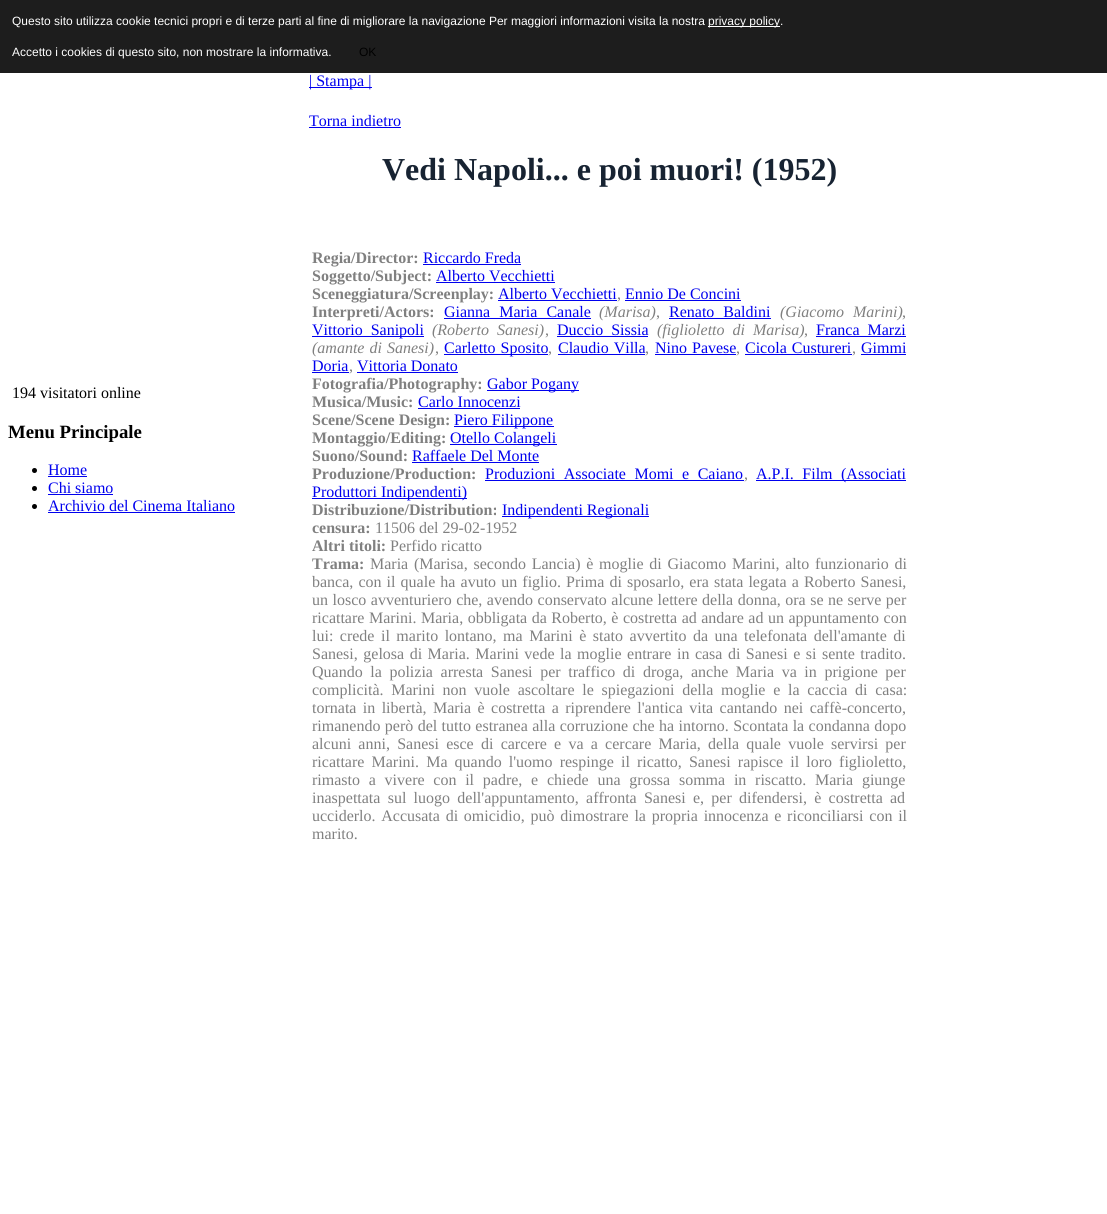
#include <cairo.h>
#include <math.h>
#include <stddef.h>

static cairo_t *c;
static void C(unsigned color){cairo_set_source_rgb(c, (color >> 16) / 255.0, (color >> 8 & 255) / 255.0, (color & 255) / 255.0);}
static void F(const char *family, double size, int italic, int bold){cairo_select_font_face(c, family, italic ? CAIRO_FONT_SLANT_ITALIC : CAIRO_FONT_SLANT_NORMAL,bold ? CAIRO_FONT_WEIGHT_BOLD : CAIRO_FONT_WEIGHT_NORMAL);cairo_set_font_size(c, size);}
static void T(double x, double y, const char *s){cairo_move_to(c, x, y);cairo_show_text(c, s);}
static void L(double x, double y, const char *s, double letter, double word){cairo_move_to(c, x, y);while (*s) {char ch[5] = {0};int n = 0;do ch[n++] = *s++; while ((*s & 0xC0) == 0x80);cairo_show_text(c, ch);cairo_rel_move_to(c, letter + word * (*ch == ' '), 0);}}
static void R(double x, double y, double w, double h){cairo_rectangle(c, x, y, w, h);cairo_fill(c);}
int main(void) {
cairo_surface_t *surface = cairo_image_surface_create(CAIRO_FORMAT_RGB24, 1107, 1214);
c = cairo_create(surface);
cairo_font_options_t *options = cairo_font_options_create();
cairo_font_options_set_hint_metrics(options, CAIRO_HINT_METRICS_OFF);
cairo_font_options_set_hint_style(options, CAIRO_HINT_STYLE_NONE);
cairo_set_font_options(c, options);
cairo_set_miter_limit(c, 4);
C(0xffffff);
cairo_paint(c);
C(0x1d1d1d);
R(0,0,1107,73);
F("Liberation Sans",12,0,0);
C(0xffffff);
T(12,25,"Questo sito utilizza cookie tecnici propri e di terze parti al fine di migliorare la navigazione Per maggiori informazioni visita la nostra");
R(708,26,72,1);
T(708,25,"privacy policy.");
T(12,56,"Accetto i cookies di questo sito, non mostrare la informativa.");
C(0x000000);
T(359,56,"OK");
F("Liberation Serif",16,0,0);
T(12,398,"194 visitatori online");
F("Liberation Serif",18.75,0,1);
T(8,438,"Menu Principale");
cairo_new_path(c);
cairo_arc(c,34.5,470.5,2.5,0,2 * M_PI);
cairo_fill(c);
F("Liberation Serif",16,0,0);
C(0x0000ee);
T(48,475,"Home");
R(48,476,39,1);
C(0x000000);
cairo_new_path(c);
cairo_arc(c,34.5,488.5,2.5,0,2 * M_PI);
cairo_fill(c);
C(0x0000ee);
T(48,493,"Chi siamo");
R(48,494,65,1);
C(0x000000);
cairo_new_path(c);
cairo_arc(c,34.5,506.5,2.5,0,2 * M_PI);
cairo_fill(c);
C(0x0000ee);
T(48,511,"Archivio del Cinema Italiano");
R(48,512,187,1);
R(309,87,63,1);
T(309,86,"| Stampa |");
T(309,126,"Torna indietro");
R(309,127,92,1);
F("Liberation Serif",32,0,1);
C(0x172332);
T(382,180,"Vedi Napoli... e poi muori! (1952)");
F("Liberation Serif",16,0,1);
C(0x808080);
T(312,263,"Regia/Director:");
F("Liberation Serif",16,0,0);
C(0x0000ee);
T(423,263,"Riccardo Freda");
R(423,264,98,1);
F("Liberation Serif",16,0,1);
C(0x808080);
T(312,281,"Soggetto/Subject:");
F("Liberation Serif",16,0,0);
C(0x0000ee);
T(436,281,"Alberto Vecchietti");
R(436,282,119,1);
F("Liberation Serif",16,0,1);
C(0x808080);
T(312,299,"Sceneggiatura/Screenplay:");
F("Liberation Serif",16,0,0);
C(0x0000ee);
T(498,299,"Alberto Vecchietti");
C(0x808080);
T(617,299,",");
C(0x0000ee);
R(498,300,119,1);
R(625,300,116,1);
T(625,299,"Ennio De Concini");
F("Liberation Serif",16,0,1);
C(0x808080);
T(312,317,"Interpreti/Actors:");
F("Liberation Serif",16,0,0);
C(0x0000ee);
L(444,317,"Gianna Maria Canale",0,5);
R(444,318,147,1);
F("Liberation Serif",16,1,0);
C(0x808080);
T(599,317,"(Marisa)");
F("Liberation Serif",16,0,0);
T(656,317,",");
C(0x0000ee);
R(669,318,102,1);
L(669,317,"Renato Baldini",0,5);
F("Liberation Serif",16,1,0);
C(0x808080);
L(780,317,"(Giacomo Marini)",0,5);
F("Liberation Serif",16,0,0);
T(902,317,",");
C(0x0000ee);
R(312,336,112,1);
L(312,335,"Vittorio Sanipoli",0,4);
F("Liberation Serif",16,1,0);
C(0x808080);
L(432,335,"(Roberto Sanesi)",0,4);
F("Liberation Serif",16,0,0);
T(545,335,",");
C(0x0000ee);
R(557,336,91,1);
L(557,335,"Duccio Sissia",0,4);
F("Liberation Serif",16,1,0);
C(0x808080);
L(657,335,"(figlioletto di Marisa)",0,4);
F("Liberation Serif",16,0,0);
T(804,335,",");
C(0x0000ee);
R(816,336,90,1);
L(816,335,"Franca Marzi",0,4);
F("Liberation Serif",16,1,0);
C(0x808080);
L(312,353,"(amante di Sanesi)",0,1);
F("Liberation Serif",16,0,0);
T(435,353,",");
C(0x0000ee);
R(444,354,104,1);
L(444,353,"Carletto Sposito",0,1);
C(0x808080);
T(548,353,",");
C(0x0000ee);
L(558,353,"Claudio Villa",0,1);
C(0x808080);
T(645,353,",");
C(0x0000ee);
R(558,354,87,1);
L(655,353,"Nino Pavese",0,1);
C(0x808080);
T(736,353,",");
C(0x0000ee);
R(655,354,81,1);
L(745,353,"Cicola Custureri",0,1);
C(0x808080);
T(852,353,",");
C(0x0000ee);
R(745,354,107,1);
R(861,354,45,1);
T(861,353,"Gimmi");
T(312,371,"Doria");
C(0x808080);
T(349,371,",");
C(0x0000ee);
R(312,372,37,1);
R(357,372,101,1);
T(357,371,"Vittoria Donato");
F("Liberation Serif",16,0,1);
C(0x808080);
T(312,389,"Fotografia/Photography:");
C(0x0000ee);
R(487,390,92,1);
F("Liberation Serif",16,0,0);
T(487,389,"Gabor Pogany");
F("Liberation Serif",16,0,1);
C(0x808080);
T(312,407,"Musica/Music:");
F("Liberation Serif",16,0,0);
C(0x0000ee);
T(418,407,"Carlo Innocenzi");
R(418,408,102,1);
F("Liberation Serif",16,0,1);
C(0x808080);
T(312,425,"Scene/Scene Design:");
C(0x0000ee);
R(454,426,100,1);
F("Liberation Serif",16,0,0);
T(454,425,"Piero Filippone");
F("Liberation Serif",16,0,1);
C(0x808080);
T(312,443,"Montaggio/Editing:");
C(0x0000ee);
R(450,444,107,1);
F("Liberation Serif",16,0,0);
T(450,443,"Otello Colangeli");
F("Liberation Serif",16,0,1);
C(0x808080);
T(312,461,"Suono/Sound:");
F("Liberation Serif",16,0,0);
C(0x0000ee);
T(412,461,"Raffaele Del Monte");
R(412,462,127,1);
F("Liberation Serif",16,0,1);
C(0x808080);
T(312,479,"Produzione/Production:");
F("Liberation Serif",16,0,0);
C(0x0000ee);
L(485,479,"Produzioni Associate Momi e Caiano",0,4.5);
C(0x808080);
T(744,479,",");
C(0x0000ee);
R(485,480,259,1);
R(756,480,150,1);
L(756,479,"A.P.I. Film (Associati",0,4.5);
R(312,498,155,1);
T(312,497,"Produttori Indipendenti)");
F("Liberation Serif",16,0,1);
C(0x808080);
T(312,515,"Distribuzione/Distribution:");
C(0x0000ee);
R(502,516,147,1);
F("Liberation Serif",16,0,0);
T(502,515,"Indipendenti Regionali");
F("Liberation Serif",16,0,1);
C(0x808080);
T(312,533,"censura:");
F("Liberation Serif",16,0,0);
T(375,533,"11506 del 29-02-1952");
F("Liberation Serif",16,0,1);
T(312,551,"Altri titoli:");
F("Liberation Serif",16,0,0);
T(390,551,"Perfido ricatto");
F("Liberation Serif",16,0,1);
T(312,569,"Trama:");
F("Liberation Serif",16,0,0);
L(370,569,"Maria (Marisa, secondo Lancia) è moglie di Giacomo Marini, alto funzionario di",0,1.75);
L(312,587,"banca, con il quale ha avuto un figlio. Prima di sposarlo, era stata legata a Roberto Sanesi,",0,1.1);
L(312,605,"un losco avventuriero che, avendo conservato alcune lettere della donna, ora se ne serve per",0,.5);
L(312,623,"ricattare Marini. Maria, obbligata da Roberto, è costretta ad andare ad un appuntamento con",0,.5);
L(312,641,"lui: crede il marito lontano, ma Marini è stato avvertito da una telefonata dell'amante di",0,2.5);
L(312,659,"Sanesi, gelosa di Maria. Marini vede la moglie entrare in casa di Sanesi e si sente tradito.",0,1.5);
L(312,677,"Quando la polizia arresta Sanesi per traffico di droga, anche Maria va in prigione per",0,3.6);
L(312,695,"complicità. Marini non vuole ascoltare le spiegazioni della moglie e la caccia di casa:",0,3.75);
L(312,713,"tornata in libertà, Maria è costretta a riprendere l'antica vita cantando nei caffè-concerto,",0,2.4);
L(312,731,"rimanendo però del tutto estranea alla corruzione che ha intorno. Scontata la condanna dopo",0,.4);
L(312,749,"alcuni anni, Sanesi esce di carcere e va a cercare Maria, della quale vuole servirsi per",0,3.25);
L(312,767,"ricattare Marini. Ma quando l'uomo respinge il ricatto, Sanesi rapisce il loro figlioletto,",0,3.1);
L(312,785,"rimasto a vivere con il padre, e chiede una grossa somma in riscatto. Maria giunge",0,4.75);
L(312,803,"inaspettata sul luogo dell'appuntamento, affronta Sanesi e, per difendersi, è costretta ad",0,3.25);
L(312,821,"ucciderlo. Accusata di omicidio, può dimostrare la propria innocenza e riconciliarsi con il",0,1.75);
T(312,839,"marito.");
cairo_surface_write_to_png(surface, "o.png");
cairo_font_options_destroy(options);
cairo_destroy(c);
cairo_surface_destroy(surface);
return 0;
}
